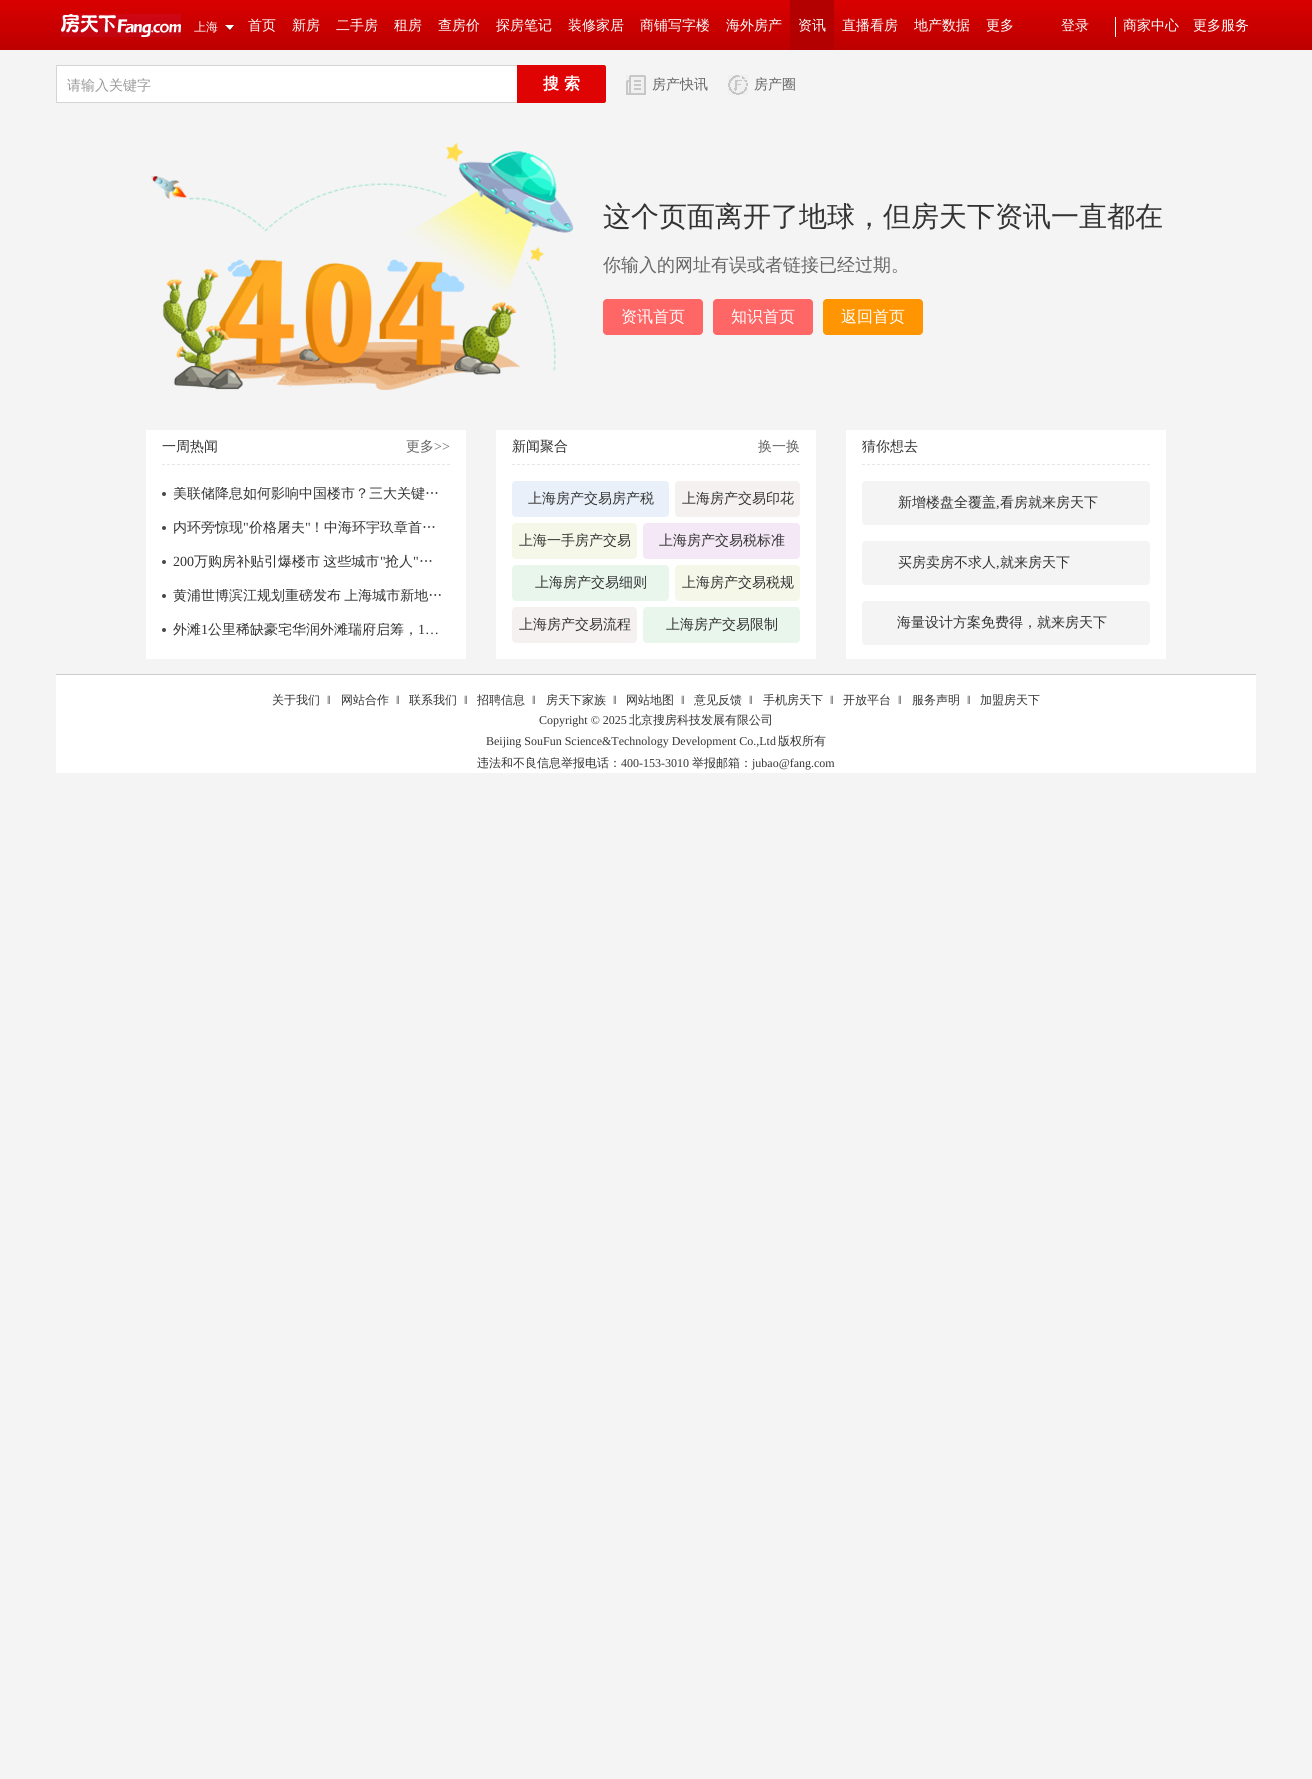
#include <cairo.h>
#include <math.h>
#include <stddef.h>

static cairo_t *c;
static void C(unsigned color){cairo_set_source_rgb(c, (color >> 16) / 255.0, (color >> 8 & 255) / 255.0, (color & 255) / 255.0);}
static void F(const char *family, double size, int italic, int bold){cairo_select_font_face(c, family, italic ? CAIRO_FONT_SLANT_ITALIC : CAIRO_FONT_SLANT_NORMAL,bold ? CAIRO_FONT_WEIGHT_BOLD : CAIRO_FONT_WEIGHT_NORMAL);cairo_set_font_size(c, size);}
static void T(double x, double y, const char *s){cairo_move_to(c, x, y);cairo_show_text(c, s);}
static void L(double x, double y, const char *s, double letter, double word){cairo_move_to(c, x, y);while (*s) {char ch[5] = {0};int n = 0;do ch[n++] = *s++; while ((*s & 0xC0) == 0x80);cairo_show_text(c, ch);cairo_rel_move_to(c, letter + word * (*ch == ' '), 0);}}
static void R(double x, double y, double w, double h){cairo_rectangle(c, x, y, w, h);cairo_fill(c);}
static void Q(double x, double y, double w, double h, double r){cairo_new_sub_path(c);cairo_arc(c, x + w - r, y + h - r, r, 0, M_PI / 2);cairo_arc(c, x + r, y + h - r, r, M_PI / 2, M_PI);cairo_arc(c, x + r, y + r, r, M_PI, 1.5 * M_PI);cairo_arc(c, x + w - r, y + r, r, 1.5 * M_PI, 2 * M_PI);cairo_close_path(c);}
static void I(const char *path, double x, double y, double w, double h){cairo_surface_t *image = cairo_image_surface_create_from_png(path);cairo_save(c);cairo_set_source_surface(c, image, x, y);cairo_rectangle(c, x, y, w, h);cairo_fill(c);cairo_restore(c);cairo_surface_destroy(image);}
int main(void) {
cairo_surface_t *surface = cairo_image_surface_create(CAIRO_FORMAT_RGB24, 1312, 1779);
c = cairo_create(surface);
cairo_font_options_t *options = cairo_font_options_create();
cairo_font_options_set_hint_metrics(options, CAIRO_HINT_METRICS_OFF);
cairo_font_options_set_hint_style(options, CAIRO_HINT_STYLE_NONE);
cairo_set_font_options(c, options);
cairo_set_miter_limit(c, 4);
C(0xf4f4f4);
cairo_paint(c);
I("1.png",0,0,1312,50);
I("2.png",61,14,120,23);
F("WenQuanYi Zen Hei Medium",12,0,0);
C(0xffffff);
T(194,31,"上海");
I("3.png",225,25,9,6);
F("WenQuanYi Zen Hei Medium",14,0,0);
T(248,30,"首页");
T(292,30,"新房");
T(336,30,"二手房");
T(394,30,"租房");
T(438,30,"查房价");
T(496,30,"探房笔记");
T(568,30,"装修家居");
T(640,30,"商铺写字楼");
T(726,30,"海外房产");
C(0xb30000);
R(790,0,44,50);
C(0xffffff);
T(798,30,"资讯");
T(842,30,"直播看房");
T(914,30,"地产数据");
T(986,30,"更多");
T(1061,30,"登录");
R(1115,17,1,20);
T(1123,30,"商家中心");
T(1193,30,"更多服务");
cairo_new_path(c);
cairo_move_to(c,58,65);
cairo_line_to(c,517,65);
cairo_line_to(c,517,103);
cairo_line_to(c,58,103);
cairo_curve_to(c,57,103,56,102,56,101);
cairo_line_to(c,56,67);
cairo_curve_to(c,56,66,57,65,58,65);
cairo_close_path(c);
cairo_fill(c);
C(0xd4d4d4);
R(56,65,461,1);
R(56,102,461,1);
cairo_save(c);
Q(56,65,550,38,2);
cairo_clip(c);
R(56,65,1,38);
cairo_restore(c);
C(0x999999);
T(67,90,"请输入关键字");
C(0xdf0303);
cairo_new_path(c);
cairo_move_to(c,517,65);
cairo_line_to(c,604,65);
cairo_curve_to(c,605,65,606,66,606,67);
cairo_line_to(c,606,101);
cairo_curve_to(c,606,102,605,103,604,103);
cairo_line_to(c,517,103);
cairo_close_path(c);
cairo_fill(c);
F("WenQuanYi Zen Hei",16,0,1);
C(0xffffff);
T(543,89,"搜");
T(564,89,"索");
I("4.png",626,75,20,20);
F("WenQuanYi Zen Hei Medium",14,0,0);
C(0x666666);
T(652,89,"房产快讯");
I("5.png",728,75,20,20);
T(754,89,"房产圈");
I("6.png",151,143,423,247);
F("WenQuanYi Zen Hei Medium",28,0,0);
C(0x333333);
T(603,226,"这个页面离开了地球，但房天下资讯一直都在");
F("WenQuanYi Zen Hei Medium",18,0,0);
C(0x666666);
T(603,271,"你输入的网址有误或者链接已经过期。");
C(0xff6666);
Q(603,299,100,36,4);
cairo_fill(c);
F("WenQuanYi Zen Hei Medium",16,0,0);
C(0xffffff);
T(621,322,"资讯首页");
C(0xff6666);
Q(713,299,100,36,4);
cairo_fill(c);
C(0xffffff);
T(731,322,"知识首页");
C(0xff9500);
Q(823,299,100,36,4);
cairo_fill(c);
C(0xffffff);
T(841,322,"返回首页");
R(146,430,320,229);
cairo_new_path(c);
cairo_move_to(c,162,464.5);
cairo_line_to(c,450,464.5);
C(0xe7e7e7);
cairo_set_line_width(c,1);
cairo_set_dash(c,(double[]){3,2},2,0);
cairo_stroke(c);
F("WenQuanYi Zen Hei Medium",14,0,0);
C(0x333333);
T(162,451,"一周热闻");
C(0x666666);
T(406,451,"更多");
F("Liberation Serif",14,0,0);
T(434,451,">>");
C(0x474747);
cairo_new_path(c);
cairo_arc(c,164,494,2,0,2 * M_PI);
cairo_fill(c);
cairo_save(c);
cairo_rectangle(c,173,487,270,14);
cairo_clip(c);
F("WenQuanYi Zen Hei Medium",14,0,0);
C(0x333333);
T(173,498,"美联储降息如何影响中国楼市？三大关键…");
cairo_restore(c);
cairo_new_path(c);
cairo_arc(c,164,528,2,0,2 * M_PI);
cairo_fill(c);
cairo_save(c);
cairo_rectangle(c,173,521,270,14);
cairo_clip(c);
F("WenQuanYi Zen Hei Medium",14,0,0);
C(0x333333);
T(173,532,"内环旁惊现");
cairo_restore(c);
C(0x333333);
T(243,532,"\"");
cairo_save(c);
cairo_rectangle(c,173,521,270,14);
cairo_clip(c);
F("WenQuanYi Zen Hei Medium",14,0,0);
T(249,532,"价格屠夫");
cairo_restore(c);
T(305,532,"\"");
cairo_save(c);
cairo_rectangle(c,173,521,270,14);
cairo_clip(c);
F("WenQuanYi Zen Hei Medium",14,0,0);
T(310,532,"！中海环宇玖章首…");
cairo_restore(c);
C(0x474747);
cairo_new_path(c);
cairo_arc(c,164,562,2,0,2 * M_PI);
cairo_fill(c);
C(0x333333);
T(173,566,"200");
cairo_save(c);
cairo_rectangle(c,173,555,270,14);
cairo_clip(c);
F("WenQuanYi Zen Hei Medium",14,0,0);
L(194,566,"万购房补贴引爆楼市 这些城市",0,-1);
cairo_restore(c);
T(380,566,"\"");
F("WenQuanYi Zen Hei Medium",14,0,0);
T(385,566,"抢人");
F("Liberation Serif",14,0,0);
T(413,566,"\"");
F("WenQuanYi Zen Hei Medium",14,0,0);
T(419,566,"…");
C(0x474747);
cairo_new_path(c);
cairo_arc(c,164,596,2,0,2 * M_PI);
cairo_fill(c);
cairo_save(c);
cairo_rectangle(c,173,589,270,14);
cairo_clip(c);
C(0x333333);
L(173,600,"黄浦世博滨江规划重磅发布 上海城市新地…",0,-1);
cairo_restore(c);
cairo_new_path(c);
cairo_arc(c,164,630,2,0,2 * M_PI);
cairo_fill(c);
cairo_save(c);
cairo_rectangle(c,173,623,270,14);
cairo_clip(c);
C(0x333333);
T(173,634,"外滩");
cairo_restore(c);
F("Liberation Serif",14,0,0);
C(0x333333);
T(201,634,"1");
cairo_save(c);
cairo_rectangle(c,173,623,270,14);
cairo_clip(c);
F("WenQuanYi Zen Hei Medium",14,0,0);
T(208,634,"公里稀缺豪宅华润外滩瑞府启筹，");
cairo_restore(c);
T(418,634,"1…");
C(0xffffff);
R(496,430,320,229);
cairo_new_path(c);
cairo_move_to(c,512,464.5);
cairo_line_to(c,800,464.5);
C(0xe7e7e7);
cairo_stroke(c);
F("WenQuanYi Zen Hei Medium",14,0,0);
C(0x333333);
T(512,451,"新闻聚合");
C(0x666666);
T(758,451,"换一换");
C(0xe9f0f9);
Q(512,481,157,36,4);
cairo_fill(c);
C(0x333333);
T(528,503,"上海房产交易房产税");
C(0xf4f1f0);
Q(675,481,125,36,4);
cairo_fill(c);
C(0x333333);
T(682,503,"上海房产交易印花");
C(0xf5f8e9);
Q(512,523,125,36,4);
cairo_fill(c);
C(0x333333);
T(519,545,"上海一手房产交易");
C(0xf4e7f6);
Q(643,523,157,36,4);
cairo_fill(c);
C(0x333333);
T(659,545,"上海房产交易税标准");
C(0xe9f6ec);
Q(512,565,157,36,4);
cairo_fill(c);
C(0x333333);
T(535,587,"上海房产交易细则");
C(0xf5f8e9);
Q(675,565,125,36,4);
cairo_fill(c);
C(0x333333);
T(682,587,"上海房产交易税规");
C(0xf4f1f0);
Q(512,607,125,36,4);
cairo_fill(c);
C(0x333333);
T(519,629,"上海房产交易流程");
C(0xe9f6ec);
Q(643,607,157,36,4);
cairo_fill(c);
C(0x333333);
T(666,629,"上海房产交易限制");
C(0xffffff);
R(846,430,320,229);
cairo_new_path(c);
cairo_move_to(c,862,464.5);
cairo_line_to(c,1150,464.5);
C(0xe7e7e7);
cairo_stroke(c);
C(0x333333);
T(862,451,"猜你想去");
C(0xf4f4f4);
Q(862,481,288,44,4);
cairo_fill(c);
C(0x333333);
T(898,507,"新增楼盘全覆盖");
F("Liberation Serif",14,0,0);
T(996,507,",");
F("WenQuanYi Zen Hei Medium",14,0,0);
T(1000,507,"看房就来房天下");
C(0xf4f4f4);
Q(862,541,288,44,4);
cairo_fill(c);
C(0x333333);
T(898,567,"买房卖房不求人");
F("Liberation Serif",14,0,0);
T(996,567,",");
F("WenQuanYi Zen Hei Medium",14,0,0);
T(1000,567,"就来房天下");
C(0xf4f4f4);
Q(862,601,288,44,4);
cairo_fill(c);
C(0x333333);
T(897,627,"海量设计方案免费得，就来房天下");
C(0xffffff);
R(56,675,1200,98);
C(0xcccccc);
R(56,674,1200,1);
F("WenQuanYi Zen Hei Medium",12,0,0);
C(0x333333);
T(272,704,"关于我们");
F("Liberation Serif",12,0,0);
T(327,704,"‖");
F("WenQuanYi Zen Hei Medium",12,0,0);
T(341,704,"网站合作");
F("Liberation Serif",12,0,0);
T(396,704,"‖");
F("WenQuanYi Zen Hei Medium",12,0,0);
T(409,704,"联系我们");
F("Liberation Serif",12,0,0);
T(464,704,"‖");
F("WenQuanYi Zen Hei Medium",12,0,0);
T(477,704,"招聘信息");
F("Liberation Serif",12,0,0);
T(532,704,"‖");
F("WenQuanYi Zen Hei Medium",12,0,0);
T(546,704,"房天下家族");
F("Liberation Serif",12,0,0);
T(613,704,"‖");
F("WenQuanYi Zen Hei Medium",12,0,0);
T(626,704,"网站地图");
F("Liberation Serif",12,0,0);
T(681,704,"‖");
F("WenQuanYi Zen Hei Medium",12,0,0);
T(694,704,"意见反馈");
F("Liberation Serif",12,0,0);
T(749,704,"‖");
F("WenQuanYi Zen Hei Medium",12,0,0);
T(763,704,"手机房天下");
F("Liberation Serif",12,0,0);
T(830,704,"‖");
F("WenQuanYi Zen Hei Medium",12,0,0);
T(843,704,"开放平台");
F("Liberation Serif",12,0,0);
T(898,704,"‖");
F("WenQuanYi Zen Hei Medium",12,0,0);
T(912,704,"服务声明");
F("Liberation Serif",12,0,0);
T(967,704,"‖");
F("WenQuanYi Zen Hei Medium",12,0,0);
T(980,704,"加盟房天下");
F("Liberation Serif",12,0,0);
T(539,724,"Copyright © 2025");
F("WenQuanYi Zen Hei Medium",12,0,0);
T(629,724,"北京搜房科技发展有限公司");
F("Liberation Serif",12,0,0);
T(486,745,"Beijing SouFun Science&Technology Development Co.,Ltd");
F("WenQuanYi Zen Hei Medium",12,0,0);
T(778,745,"版权所有");
T(477,767,"违法和不良信息举报电话：");
F("Liberation Serif",12,0,0);
T(621,767,"400-153-3010");
F("WenQuanYi Zen Hei Medium",12,0,0);
T(692,767,"举报邮箱：");
F("Liberation Serif",12,0,0);
T(752,767,"jubao@fang.com");
cairo_surface_write_to_png(surface, "o.png");
cairo_font_options_destroy(options);
cairo_destroy(c);
cairo_surface_destroy(surface);
return 0;
}
